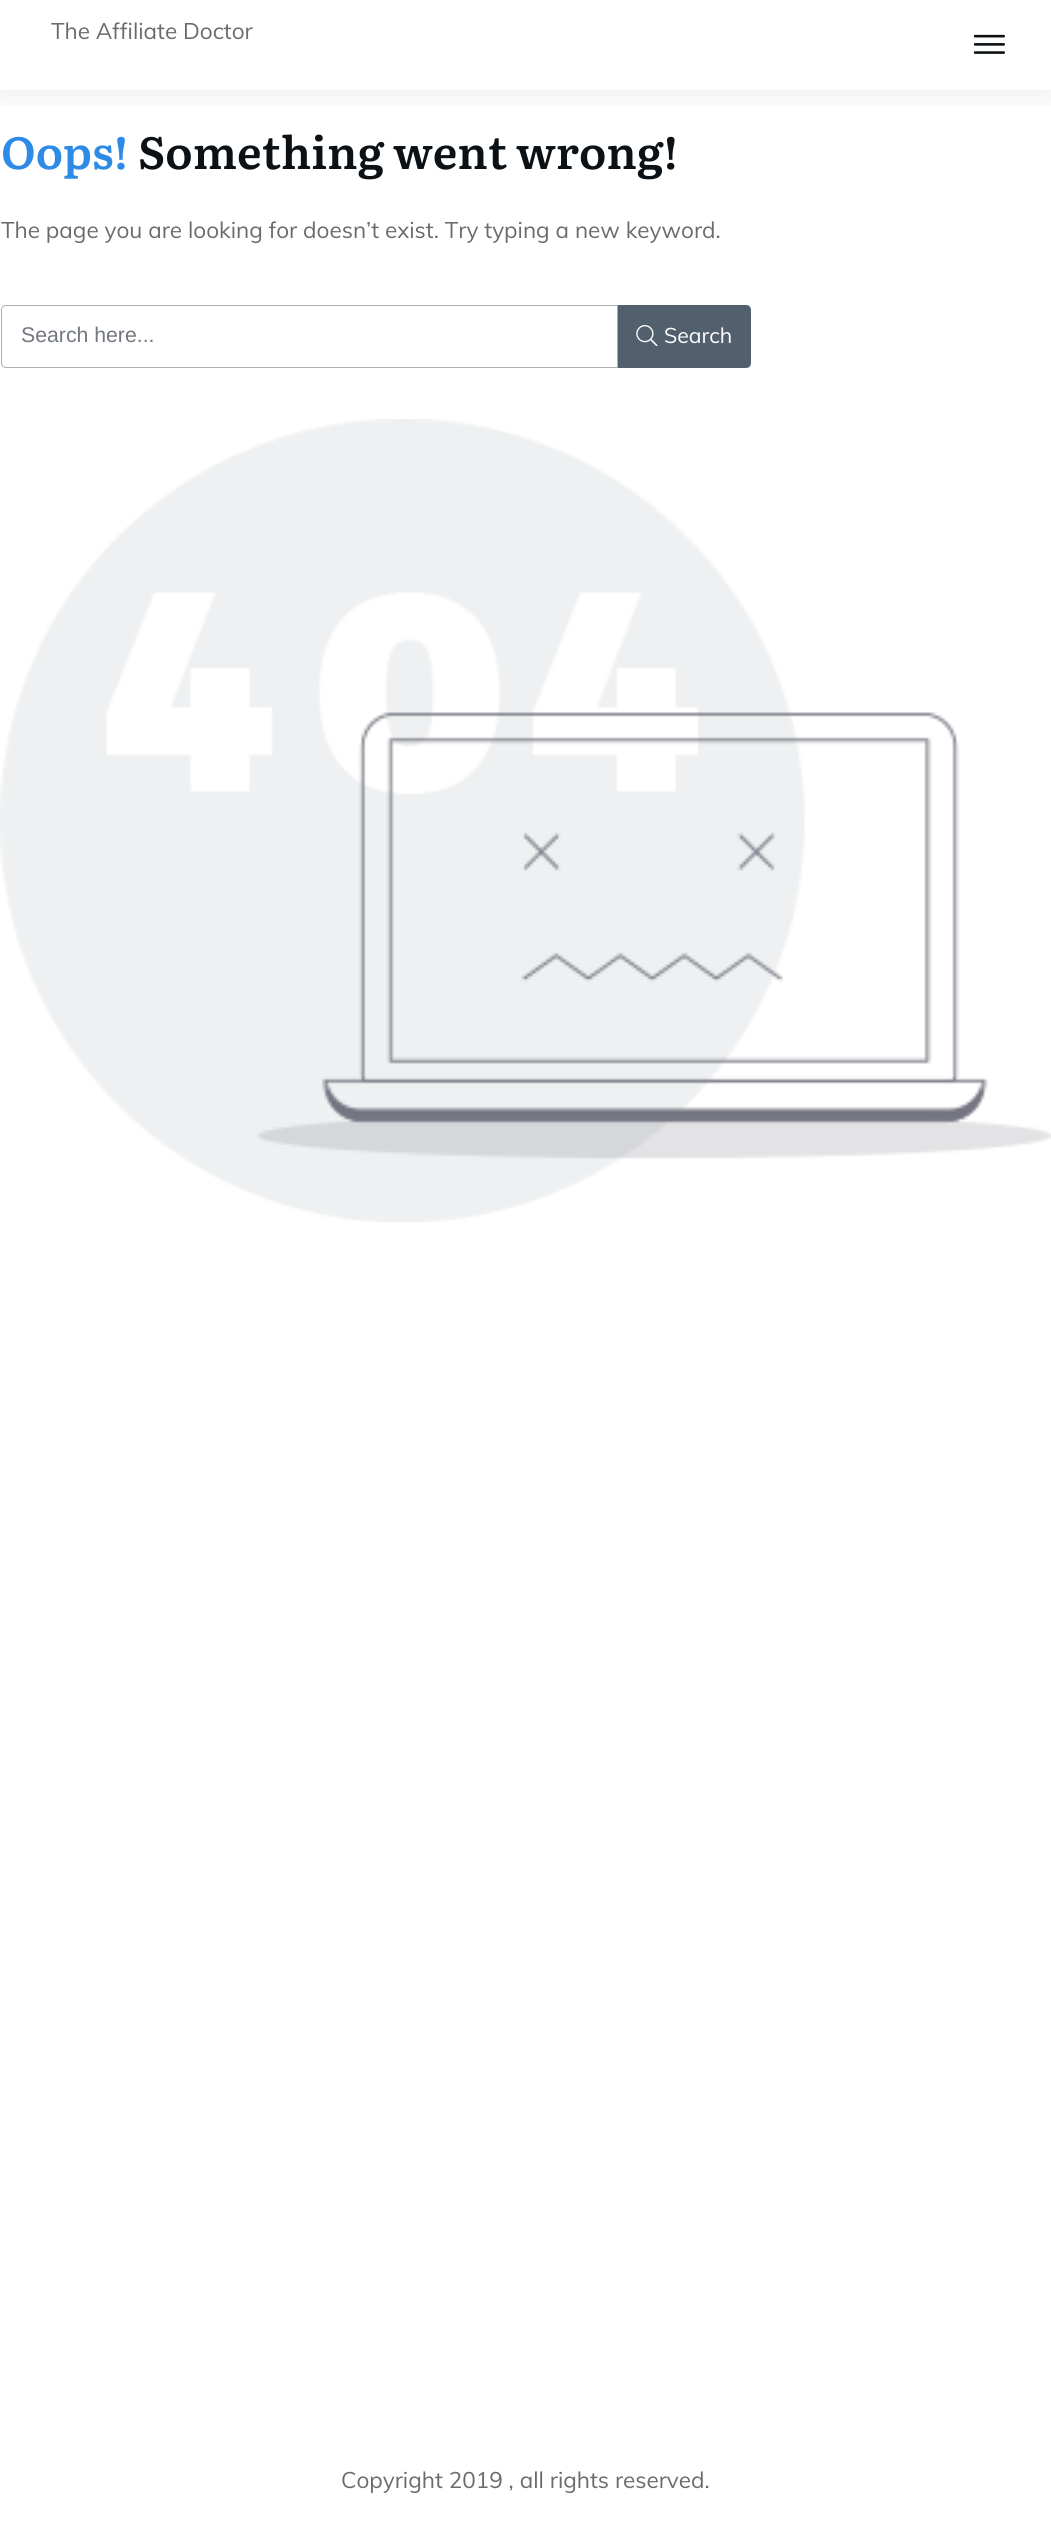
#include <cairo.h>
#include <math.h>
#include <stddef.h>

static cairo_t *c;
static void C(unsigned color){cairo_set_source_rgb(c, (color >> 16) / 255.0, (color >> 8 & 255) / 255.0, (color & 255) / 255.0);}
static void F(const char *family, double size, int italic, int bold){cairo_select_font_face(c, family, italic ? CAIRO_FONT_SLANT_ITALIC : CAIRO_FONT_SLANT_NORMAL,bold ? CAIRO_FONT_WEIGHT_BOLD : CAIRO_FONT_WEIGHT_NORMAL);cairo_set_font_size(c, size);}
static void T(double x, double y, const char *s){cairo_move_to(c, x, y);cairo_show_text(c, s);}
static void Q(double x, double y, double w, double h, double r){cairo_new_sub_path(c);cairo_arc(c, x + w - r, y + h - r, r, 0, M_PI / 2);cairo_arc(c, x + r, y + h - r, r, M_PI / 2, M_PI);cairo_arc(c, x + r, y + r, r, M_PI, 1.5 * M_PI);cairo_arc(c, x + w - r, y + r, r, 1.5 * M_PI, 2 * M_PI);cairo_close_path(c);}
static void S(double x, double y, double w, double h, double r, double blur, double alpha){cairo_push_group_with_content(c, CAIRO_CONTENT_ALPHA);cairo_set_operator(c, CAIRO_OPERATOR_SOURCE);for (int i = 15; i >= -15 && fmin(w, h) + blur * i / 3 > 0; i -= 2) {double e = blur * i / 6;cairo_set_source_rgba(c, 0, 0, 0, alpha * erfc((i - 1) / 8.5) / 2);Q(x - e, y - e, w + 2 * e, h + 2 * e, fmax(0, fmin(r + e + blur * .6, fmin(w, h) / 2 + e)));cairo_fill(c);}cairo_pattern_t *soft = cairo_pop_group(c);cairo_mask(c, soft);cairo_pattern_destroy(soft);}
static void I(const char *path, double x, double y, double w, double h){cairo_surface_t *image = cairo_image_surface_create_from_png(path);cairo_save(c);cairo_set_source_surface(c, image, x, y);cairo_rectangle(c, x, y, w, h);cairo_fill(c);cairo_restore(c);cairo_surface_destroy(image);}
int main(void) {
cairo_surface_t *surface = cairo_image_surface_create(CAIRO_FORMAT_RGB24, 1051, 2528);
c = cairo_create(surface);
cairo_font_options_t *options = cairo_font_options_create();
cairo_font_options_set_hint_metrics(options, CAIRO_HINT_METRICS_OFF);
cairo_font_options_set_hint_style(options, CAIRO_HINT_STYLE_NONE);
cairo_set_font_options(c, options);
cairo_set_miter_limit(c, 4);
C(0xffffff);
cairo_paint(c);
cairo_save(c);
cairo_rectangle(c,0,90,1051,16);
cairo_clip(c);
C(0x000000);
S(0,3,1051,90,0,19,.08);
cairo_restore(c);
F("Muli",22.5,0,0);
C(0x6a6b6c);
T(51,39,"The Affiliate Doctor");
I("1.png",974,34,31,20);
F("Literata SemiBold",45,0,0);
C(0x2d8ae6);
T(1,169,"Oops!");
C(0x0c1115);
T(138,169,"Something went wrong!");
F("Muli",22.5,0,0);
C(0x6a6b6c);
T(1,238,"The page you are looking for doesn’t exist. Try typing a new keyword.");
cairo_new_path(c);
cairo_move_to(c,6,305.5);
cairo_line_to(c,617.5,305.5);
cairo_line_to(c,617.5,367.5);
cairo_line_to(c,6,367.5);
cairo_curve_to(c,3.5,367.5,1.5,365.5,1.5,363);
cairo_line_to(c,1.5,310);
cairo_curve_to(c,1.5,307.5,3.5,305.5,6,305.5);
cairo_close_path(c);
C(0xa9b0b6);
cairo_set_line_width(c,1);
cairo_stroke(c);
F("Liberation Sans",21.25,0,0);
C(0x73787f);
T(21,342,"Search here...");
C(0x52606d);
cairo_new_path(c);
cairo_move_to(c,618,305);
cairo_line_to(c,746,305);
cairo_curve_to(c,749,305,751,307,751,310);
cairo_line_to(c,751,363);
cairo_curve_to(c,751,366,749,368,746,368);
cairo_line_to(c,618,368);
cairo_close_path(c);
cairo_fill(c);
I("2.png",636,325,22,21);
F("Muli",21.25,0,0);
C(0xffffff);
T(664,343,"Search");
I("3.png",0,419,1051,804);
F("Muli",22.5,0,0);
C(0x6a6b6c);
T(341,2488,"Copyright 2019 , all rights reserved.");
cairo_surface_write_to_png(surface, "o.png");
cairo_font_options_destroy(options);
cairo_destroy(c);
cairo_surface_destroy(surface);
return 0;
}
